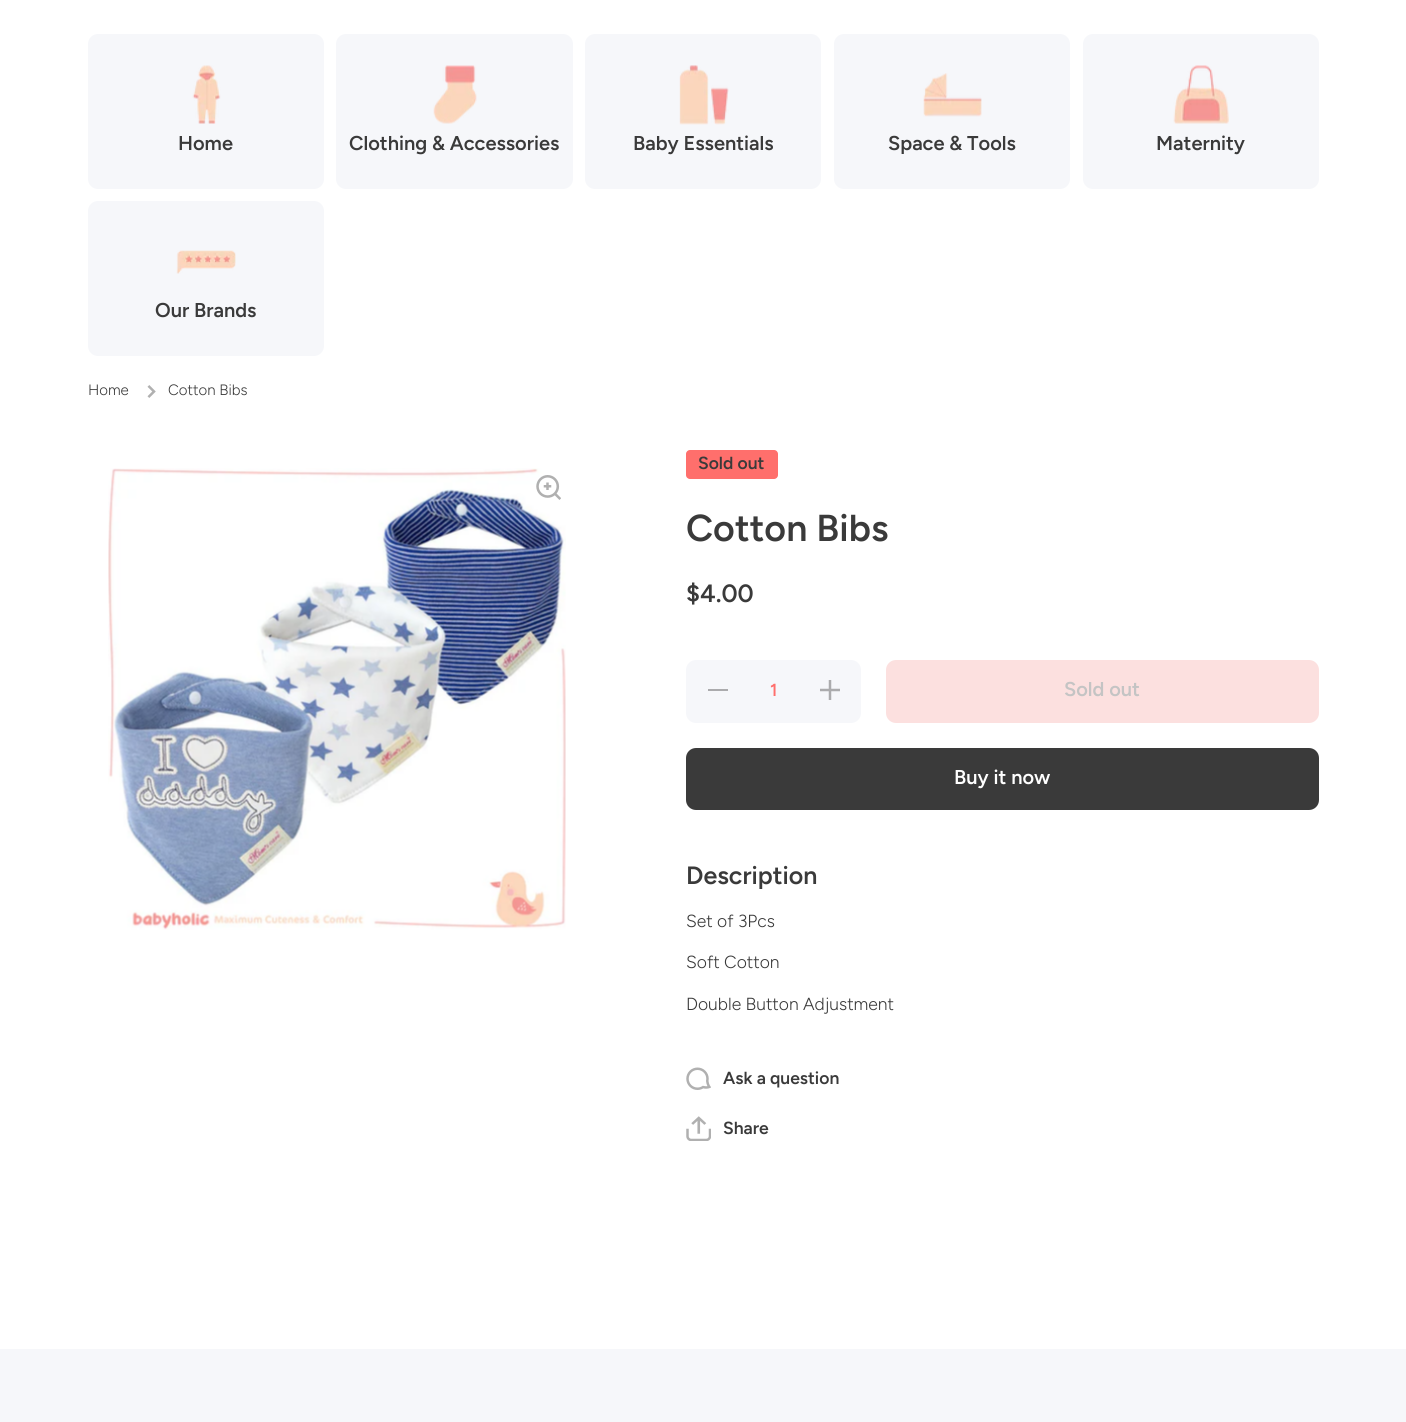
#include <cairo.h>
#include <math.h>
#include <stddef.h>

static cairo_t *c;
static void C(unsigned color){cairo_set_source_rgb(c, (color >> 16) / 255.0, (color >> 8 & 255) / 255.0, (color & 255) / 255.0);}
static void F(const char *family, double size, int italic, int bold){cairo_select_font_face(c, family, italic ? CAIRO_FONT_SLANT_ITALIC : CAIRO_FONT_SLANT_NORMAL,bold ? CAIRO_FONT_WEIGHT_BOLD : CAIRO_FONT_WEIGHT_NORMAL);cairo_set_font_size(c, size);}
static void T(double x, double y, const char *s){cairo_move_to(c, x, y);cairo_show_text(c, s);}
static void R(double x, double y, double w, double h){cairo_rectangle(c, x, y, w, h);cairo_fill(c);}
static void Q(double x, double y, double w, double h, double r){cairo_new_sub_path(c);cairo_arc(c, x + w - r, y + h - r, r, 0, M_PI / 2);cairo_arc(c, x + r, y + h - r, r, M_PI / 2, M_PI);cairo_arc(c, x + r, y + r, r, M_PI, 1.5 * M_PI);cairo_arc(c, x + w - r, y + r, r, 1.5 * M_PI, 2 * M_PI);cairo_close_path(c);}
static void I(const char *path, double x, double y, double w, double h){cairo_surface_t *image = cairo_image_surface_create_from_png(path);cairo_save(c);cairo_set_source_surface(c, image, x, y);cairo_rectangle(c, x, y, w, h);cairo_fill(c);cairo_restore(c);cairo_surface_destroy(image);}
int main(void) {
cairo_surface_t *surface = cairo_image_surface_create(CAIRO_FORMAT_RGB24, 1406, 1422);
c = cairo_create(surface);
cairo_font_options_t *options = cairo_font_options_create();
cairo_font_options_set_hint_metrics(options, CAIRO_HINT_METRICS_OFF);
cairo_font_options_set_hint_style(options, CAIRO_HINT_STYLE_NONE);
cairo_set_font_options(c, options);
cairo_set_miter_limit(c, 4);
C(0xffffff);
cairo_paint(c);
C(0xf6f7fa);
Q(88,34,236,155,10);
cairo_fill(c);
I("1.png",192,65,29,59);
F("Figtree SemiBold",20,0,0);
C(0x3a3a3a);
T(178,150,"Home");
C(0xf6f7fa);
Q(336,34,237,155,10);
cairo_fill(c);
I("2.png",433,65,44,59);
C(0x3a3a3a);
T(349,150,"Clothing & Accessories");
C(0xf6f7fa);
Q(585,34,236,155,10);
cairo_fill(c);
I("3.png",679,65,50,60);
C(0x3a3a3a);
T(633,150,"Baby Essentials");
C(0xf6f7fa);
Q(834,34,236,155,10);
cairo_fill(c);
I("4.png",923,73,59,44);
C(0x3a3a3a);
T(888,150,"Space & Tools");
C(0xf6f7fa);
Q(1083,34,236,155,10);
cairo_fill(c);
I("5.png",1173,65,56,59);
C(0x3a3a3a);
T(1156,150,"Maternity");
C(0xf6f7fa);
Q(88,201,236,155,10);
cairo_fill(c);
I("6.png",176,250,60,24);
C(0x3a3a3a);
T(155,317,"Our Brands");
F("Figtree Light",15,0,0);
T(88,395,"Home");
I("7.png",147,385,9,13);
T(168,395,"Cotton Bibs");
I("8.png",108,468,458,462);
I("9.png",536,475,25,25);
C(0xff6f6c);
Q(686,450,92,29,4);
cairo_fill(c);
F("Figtree SemiBold",17.5,0,0);
C(0x3a3a3a);
T(698,469,"Sold out");
F("Figtree SemiBold",37.5,0,0);
T(686,541,"Cotton Bibs");
F("Figtree SemiBold",25,0,0);
T(686,602,"$4.00");
C(0xf6f7fa);
Q(686,660,175,63,10);
cairo_fill(c);
C(0xababad);
R(708,689,20,2);
F("Figtree SemiBold",17.5,0,0);
C(0xff6f6c);
T(770,696,"1");
I("10.png",820,680,20,20);
C(0xfce0df);
Q(886,660,433,63,10);
cairo_fill(c);
F("Figtree SemiBold",20,0,0);
C(0xc4c4c4);
T(1064,696,"Sold out");
C(0x3a3a3a);
Q(686,748,633,62,10);
cairo_fill(c);
C(0xffffff);
T(954,784,"Buy it now");
F("Figtree SemiBold",25,0,0);
C(0x3a3a3a);
T(686,884,"Description");
F("Figtree Light",17.5,0,0);
T(686,927,"Set of 3Pcs");
T(686,968,"Soft Cotton");
T(686,1010,"Double Button Adjustment");
I("11.png",686,1067,25,23);
F("Figtree SemiBold",17.5,0,0);
T(723,1084,"Ask a question");
I("12.png",686,1116,25,25);
T(723,1134,"Share");
C(0xf6f7fa);
R(0,1349,1406,73);
cairo_surface_write_to_png(surface, "o.png");
cairo_font_options_destroy(options);
cairo_destroy(c);
cairo_surface_destroy(surface);
return 0;
}
